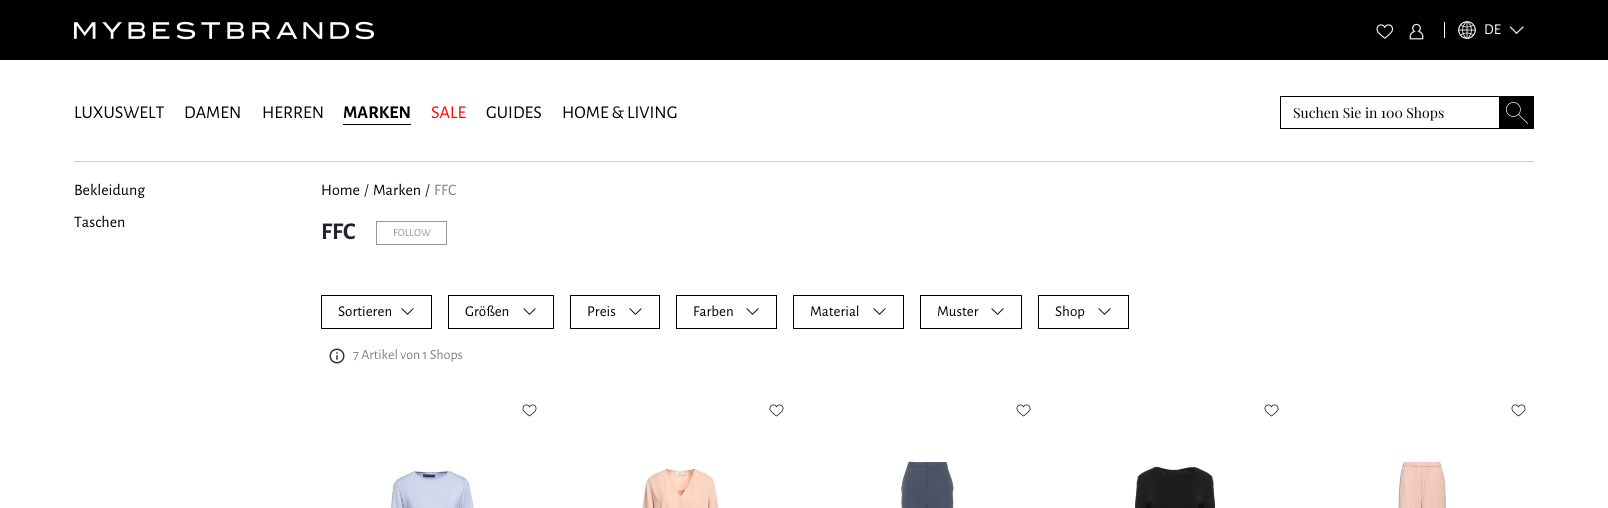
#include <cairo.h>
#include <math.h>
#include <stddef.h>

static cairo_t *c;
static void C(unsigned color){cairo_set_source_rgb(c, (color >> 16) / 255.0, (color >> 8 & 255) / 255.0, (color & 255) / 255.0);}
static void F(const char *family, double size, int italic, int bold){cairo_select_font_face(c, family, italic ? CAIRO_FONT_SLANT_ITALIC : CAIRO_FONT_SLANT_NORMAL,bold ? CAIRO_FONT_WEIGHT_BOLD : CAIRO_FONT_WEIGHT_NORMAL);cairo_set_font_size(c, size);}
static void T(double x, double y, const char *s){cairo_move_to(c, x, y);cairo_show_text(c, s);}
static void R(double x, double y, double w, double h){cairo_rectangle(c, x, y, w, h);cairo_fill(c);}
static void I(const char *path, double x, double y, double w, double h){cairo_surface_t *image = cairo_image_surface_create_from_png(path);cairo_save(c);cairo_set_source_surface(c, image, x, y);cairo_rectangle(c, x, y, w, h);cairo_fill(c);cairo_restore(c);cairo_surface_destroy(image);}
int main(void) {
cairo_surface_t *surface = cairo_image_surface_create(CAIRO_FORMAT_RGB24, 1608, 508);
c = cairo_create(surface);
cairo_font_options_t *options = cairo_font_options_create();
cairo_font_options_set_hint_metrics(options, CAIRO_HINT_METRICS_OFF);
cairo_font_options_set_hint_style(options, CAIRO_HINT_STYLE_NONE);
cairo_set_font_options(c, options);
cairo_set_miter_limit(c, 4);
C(0xffffff);
cairo_paint(c);
C(0x000000);
R(0,0,1608,60);
I("1.png",74,21,300,19);
I("2.png",1376,24,17,15);
I("3.png",1409,23,15,17);
C(0xffffff);
R(1444,22,1,16);
I("4.png",1458,21,18,18);
F("Alegreya Sans",15,0,0);
T(1484,34,"DE");
I("5.png",1509,26,15,8);
F("Alegreya Sans",18,0,0);
C(0x000000);
T(74,118,"LUXUSWELT");
T(184,118,"DAMEN");
T(262,118,"HERREN");
F("Alegreya Sans",18,0,1);
T(343,118,"MARKEN");
R(343,124,68,1);
F("Alegreya Sans",18,0,0);
C(0xff0000);
T(431,118,"SALE");
C(0x000000);
T(486,118,"GUIDES");
T(562,118,"HOME & LIVING");
cairo_rectangle(c,1280.5,96.5,219,32);
cairo_set_line_width(c,1);
cairo_stroke(c);
F("Playfair Display",14,0,0);
T(1293,118,"Suchen Sie in 100 Shops");
R(1500,96,34,33);
I("6.png",1506,102,22,22);
C(0xcccccc);
R(74,161,1460,1);
F("Alegreya Sans",16,0,0);
C(0x000000);
T(74,195,"Bekleidung");
T(74,227,"Taschen");
T(321,195,"Home");
C(0x212529);
T(364,195,"/");
C(0x000000);
T(373,195,"Marken");
C(0x212529);
T(425,195,"/");
C(0x808080);
T(434,195,"FFC");
F("Alegreya Sans",24,0,1);
C(0x212529);
T(321,239,"FFC");
cairo_rectangle(c,376.5,221.5,70,23);
C(0x979797);
cairo_stroke(c);
F("Alegreya Sans",11,0,0);
T(393,236,"FOLLOW");
cairo_rectangle(c,321.5,295.5,110,33);
C(0x000000);
cairo_stroke(c);
F("Alegreya Sans",15,0,0);
T(338,316,"Sortieren");
I("7.png",401,308,13,7);
cairo_rectangle(c,448.5,295.5,105,33);
cairo_stroke(c);
T(465,316,"Größen");
I("7.png",523,308,13,7);
cairo_rectangle(c,570.5,295.5,89,33);
cairo_stroke(c);
T(587,316,"Preis");
I("7.png",629,308,13,7);
cairo_rectangle(c,676.5,295.5,100,33);
cairo_stroke(c);
T(693,316,"Farben");
I("7.png",746,308,13,7);
cairo_rectangle(c,793.5,295.5,110,33);
cairo_stroke(c);
T(810,316,"Material");
I("7.png",873,308,13,7);
cairo_rectangle(c,920.5,295.5,101,33);
cairo_stroke(c);
T(937,316,"Muster");
I("7.png",991,308,13,7);
cairo_rectangle(c,1038.5,295.5,90,33);
cairo_stroke(c);
T(1055,316,"Shop");
I("7.png",1098,308,13,7);
I("8.png",329,348,16,16);
F("Alegreya Sans",14,0,0);
C(0x808080);
T(353,359,"7 Artikel von 1 Shops");
I("9.png",522,404,15,13);
I("10.png",390,469,84,39);
I("9.png",769,404,15,13);
I("11.png",641,468,78,40);
I("9.png",1016,404,15,13);
I("12.png",901,461,53,47);
I("9.png",1264,404,15,13);
I("13.png",1134,466,82,42);
I("9.png",1511,404,15,13);
I("14.png",1398,461,49,47);
cairo_surface_write_to_png(surface, "o.png");
cairo_font_options_destroy(options);
cairo_destroy(c);
cairo_surface_destroy(surface);
return 0;
}
